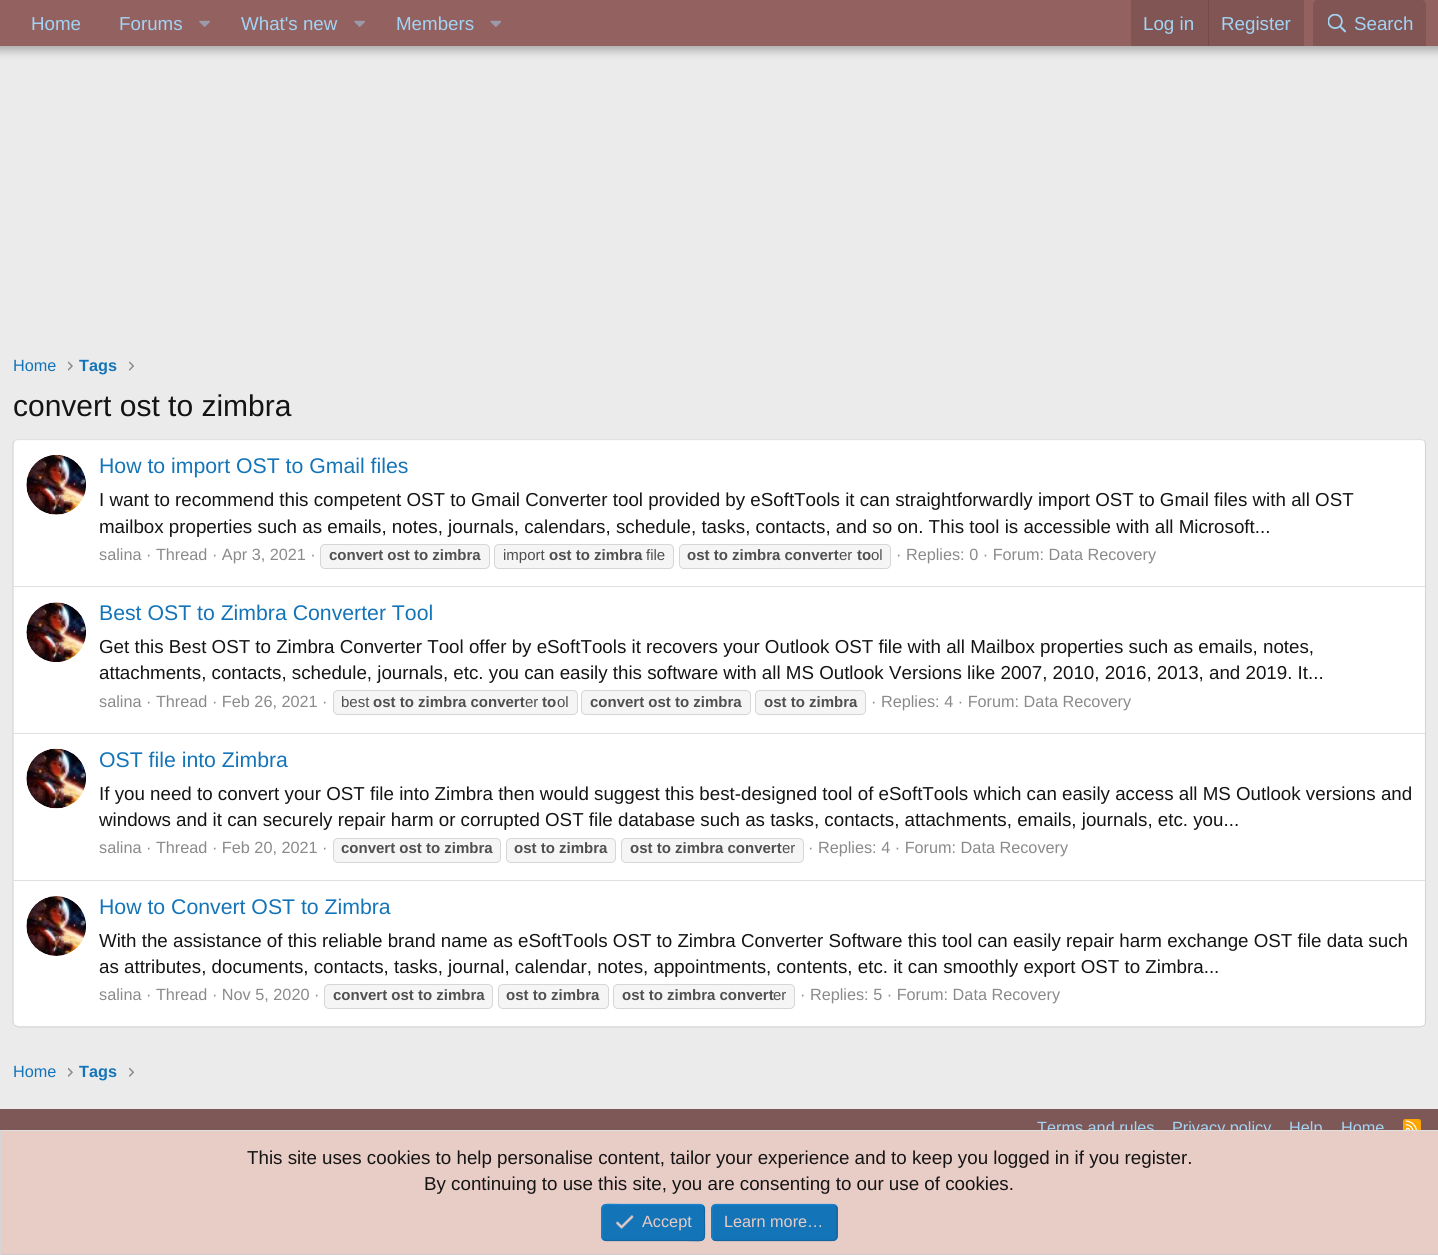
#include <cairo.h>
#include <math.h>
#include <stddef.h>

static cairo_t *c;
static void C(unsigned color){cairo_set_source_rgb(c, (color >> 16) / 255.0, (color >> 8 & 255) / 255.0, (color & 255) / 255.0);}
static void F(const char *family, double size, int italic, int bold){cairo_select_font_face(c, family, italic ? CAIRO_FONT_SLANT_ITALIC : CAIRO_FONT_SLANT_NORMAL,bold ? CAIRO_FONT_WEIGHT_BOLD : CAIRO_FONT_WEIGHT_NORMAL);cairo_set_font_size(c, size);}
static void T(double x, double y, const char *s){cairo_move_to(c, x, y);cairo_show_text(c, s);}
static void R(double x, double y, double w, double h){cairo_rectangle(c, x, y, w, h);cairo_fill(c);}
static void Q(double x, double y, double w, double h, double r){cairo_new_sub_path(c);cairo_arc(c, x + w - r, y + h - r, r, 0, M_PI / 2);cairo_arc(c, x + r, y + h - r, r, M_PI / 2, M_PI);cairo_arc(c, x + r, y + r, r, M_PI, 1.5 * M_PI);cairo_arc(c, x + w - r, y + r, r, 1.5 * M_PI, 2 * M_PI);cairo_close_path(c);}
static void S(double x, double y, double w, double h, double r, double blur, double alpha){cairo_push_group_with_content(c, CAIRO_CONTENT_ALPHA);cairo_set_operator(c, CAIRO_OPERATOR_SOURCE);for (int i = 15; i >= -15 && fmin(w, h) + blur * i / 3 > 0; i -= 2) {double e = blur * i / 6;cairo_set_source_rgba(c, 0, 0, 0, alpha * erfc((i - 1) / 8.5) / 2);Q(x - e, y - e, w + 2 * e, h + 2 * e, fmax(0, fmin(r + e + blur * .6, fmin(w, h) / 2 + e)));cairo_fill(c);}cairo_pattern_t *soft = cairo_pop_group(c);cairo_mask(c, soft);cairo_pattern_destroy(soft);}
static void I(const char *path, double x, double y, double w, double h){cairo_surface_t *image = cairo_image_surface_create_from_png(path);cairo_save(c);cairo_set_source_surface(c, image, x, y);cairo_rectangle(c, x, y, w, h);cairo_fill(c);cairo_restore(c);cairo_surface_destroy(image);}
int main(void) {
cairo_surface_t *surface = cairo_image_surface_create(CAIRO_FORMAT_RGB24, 1438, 1255);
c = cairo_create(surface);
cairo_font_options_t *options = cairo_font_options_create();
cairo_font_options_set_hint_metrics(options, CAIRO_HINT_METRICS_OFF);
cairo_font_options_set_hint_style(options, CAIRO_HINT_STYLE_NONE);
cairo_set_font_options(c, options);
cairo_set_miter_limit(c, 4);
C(0xebebeb);
cairo_paint(c);
C(0x000000);
S(-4,-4,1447,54,0,5,.3);
C(0x93615f);
R(0,0,1438,46);
F("Liberation Sans",18.75,0,0);
C(0xa3d4f5);
T(31,30,"Home");
T(119,30,"Forums");
I("1.png",199,20,11,7);
T(241,30,"What's new");
I("1.png",354,20,11,7);
T(396,30,"Members");
I("2.png",490,20,11,7);
C(0x805554);
R(1131,0,173,46);
C(0xa3d4f5);
T(1143,30,"Log in");
C(0x704b4a);
R(1208,0,1,46);
C(0xa3d4f5);
T(1221,30,"Register");
C(0x805554);
cairo_new_path(c);
cairo_move_to(c,1318,0);
cairo_line_to(c,1421,0);
cairo_curve_to(c,1424,0,1426,2,1426,5);
cairo_line_to(c,1426,46);
cairo_line_to(c,1313,46);
cairo_line_to(c,1313,5);
cairo_curve_to(c,1313,2,1315,0,1318,0);
cairo_close_path(c);
cairo_fill(c);
I("3.png",1328,14,18,19);
C(0xa3d4f5);
T(1354,30,"Search");
F("Liberation Sans",16.25,0,0);
C(0x1474b8);
T(13,371,"Home");
I("4.png",68,361,5,10);
F("Liberation Sans",16.25,0,1);
T(79,371,"Tags");
I("5.png",129,361,5,10);
F("Liberation Sans",30,0,0);
C(0x141414);
T(13,416,"convert ost to zimbra");
C(0xffffff);
Q(13,439,1413,589,5);
cairo_fill(c);
cairo_new_path(c);
cairo_move_to(c,14.5,440.5);
cairo_line_to(c,17.5,439.5);
cairo_line_to(c,1421,439.5);
cairo_line_to(c,1424.5,440.5);
C(0xe0e0e0);
cairo_set_line_width(c,1.2);
cairo_stroke(c);
cairo_new_path(c);
cairo_move_to(c,1424.5,440.5);
cairo_line_to(c,1425.5,444);
cairo_line_to(c,1425.5,1022.5);
cairo_line_to(c,1424.5,1025.5);
C(0xd6d6d6);
cairo_stroke(c);
cairo_new_path(c);
cairo_move_to(c,1424.5,1025.5);
cairo_line_to(c,1421,1027);
cairo_line_to(c,17.5,1027);
cairo_line_to(c,14.5,1025.5);
C(0xcccccc);
cairo_stroke(c);
cairo_new_path(c);
cairo_move_to(c,14.5,1025.5);
cairo_line_to(c,13,1022.5);
cairo_line_to(c,13,444);
cairo_line_to(c,14.5,440.5);
C(0xd6d6d6);
cairo_stroke(c);
I("6.png",26,455,60,60);
F("Liberation Sans",21.25,0,0);
C(0x1474b8);
T(99,473,"How to import OST to Gmail files");
F("Liberation Sans",18.75,0,0);
C(0x141414);
T(99,506,"I want to recommend this competent OST to Gmail Converter tool provided by eSoftTools it can straightforwardly import OST to Gmail files with all OST");
T(99,533,"mailbox properties such as emails, notes, journals, calendars, schedule, tasks, contacts, and so on. This tool is accessible with all Microsoft...");
F("Liberation Sans",16.25,0,0);
C(0x8a8a8a);
T(99,560,"salina · Thread · Apr 3, 2021 ·");
C(0xf5f5f5);
Q(320.5,544.5,169,24,4.5);
cairo_fill_preserve(c);
C(0xd6d6d6);
cairo_set_line_width(c,1);
cairo_stroke(c);
F("Liberation Sans",15,0,1);
C(0x4f4f4f);
T(329,560,"convert ost to zimbra");
C(0xf5f5f5);
Q(494.5,544.5,179,24,4.5);
cairo_fill_preserve(c);
C(0xd6d6d6);
cairo_stroke(c);
F("Liberation Sans",15,0,0);
C(0x4f4f4f);
T(503,560,"import");
F("Liberation Sans",15,0,1);
T(549,560,"ost to zimbra");
F("Liberation Sans",15,0,0);
T(646,560,"file");
C(0xf5f5f5);
Q(679.5,544.5,211,24,4.5);
cairo_fill_preserve(c);
C(0xd6d6d6);
cairo_stroke(c);
F("Liberation Sans",15,0,1);
C(0x4f4f4f);
T(687,560,"ost to zimbra convert");
F("Liberation Sans",15,0,0);
T(839,560,"er");
F("Liberation Sans",15,0,1);
T(857,560,"to");
F("Liberation Sans",15,0,0);
T(871,560,"ol");
F("Liberation Sans",16.25,0,0);
C(0x8a8a8a);
T(896,560,"· Replies: 0 · Forum: Data Recovery");
C(0xe0e0e0);
R(14,586,1411,1);
I("7.png",26,602,60,60);
F("Liberation Sans",21.25,0,0);
C(0x1474b8);
T(99,620,"Best OST to Zimbra Converter Tool");
F("Liberation Sans",18.75,0,0);
C(0x141414);
T(99,653,"Get this Best OST to Zimbra Converter Tool offer by eSoftTools it recovers your Outlook OST file with all Mailbox properties such as emails, notes,");
T(99,679,"attachments, contacts, schedule, journals, etc. you can easily this software with all MS Outlook Versions like 2007, 2010, 2016, 2013, and 2019. It...");
F("Liberation Sans",16.25,0,0);
C(0x8a8a8a);
T(99,707,"salina · Thread · Feb 26, 2021 ·");
C(0xf5f5f5);
Q(333.5,690.5,244,24,4.5);
cairo_fill_preserve(c);
C(0xd6d6d6);
cairo_stroke(c);
F("Liberation Sans",15,0,0);
C(0x4f4f4f);
T(341,707,"best");
F("Liberation Sans",15,0,1);
T(373,707,"ost to zimbra convert");
F("Liberation Sans",15,0,0);
T(525,707,"er");
F("Liberation Sans",15,0,1);
T(542,707,"to");
F("Liberation Sans",15,0,0);
T(557,707,"ol");
C(0xf5f5f5);
Q(581.5,690.5,169,24,4.5);
cairo_fill_preserve(c);
C(0xd6d6d6);
cairo_stroke(c);
F("Liberation Sans",15,0,1);
C(0x4f4f4f);
T(590,707,"convert ost to zimbra");
C(0xf5f5f5);
Q(755.5,690.5,110,24,4.5);
cairo_fill_preserve(c);
C(0xd6d6d6);
cairo_stroke(c);
C(0x4f4f4f);
T(764,707,"ost to zimbra");
F("Liberation Sans",16.25,0,0);
C(0x8a8a8a);
T(871,707,"· Replies: 4 · Forum: Data Recovery");
C(0xe0e0e0);
R(14,733,1411,1);
I("8.png",26,748,60,61);
F("Liberation Sans",21.25,0,0);
C(0x1474b8);
T(99,767,"OST file into Zimbra");
F("Liberation Sans",18.75,0,0);
C(0x141414);
T(99,800,"If you need to convert your OST file into Zimbra then would suggest this best-designed tool of eSoftTools which can easily access all MS Outlook versions and");
T(99,826,"windows and it can securely repair harm or corrupted OST file database such as tasks, contacts, attachments, emails, journals, etc. you...");
F("Liberation Sans",16.25,0,0);
C(0x8a8a8a);
T(99,853,"salina · Thread · Feb 20, 2021 ·");
C(0xf5f5f5);
Q(333.5,838.5,167,24,4.5);
cairo_fill_preserve(c);
C(0xd6d6d6);
cairo_stroke(c);
F("Liberation Sans",15,0,1);
C(0x4f4f4f);
T(341,853,"convert ost to zimbra");
C(0xf5f5f5);
Q(506.5,838.5,109,24,4.5);
cairo_fill_preserve(c);
C(0xd6d6d6);
cairo_stroke(c);
C(0x4f4f4f);
T(514,853,"ost to zimbra");
C(0xf5f5f5);
Q(621.5,838.5,182,24,4.5);
cairo_fill_preserve(c);
C(0xd6d6d6);
cairo_stroke(c);
C(0x4f4f4f);
T(630,853,"ost to zimbra convert");
F("Liberation Sans",15,0,0);
T(782,853,"er");
F("Liberation Sans",16.25,0,0);
C(0x8a8a8a);
T(808,853,"· Replies: 4 · Forum: Data Recovery");
C(0xe0e0e0);
R(14,880,1411,1);
I("9.png",26,896,60,60);
F("Liberation Sans",21.25,0,0);
C(0x1474b8);
T(99,914,"How to Convert OST to Zimbra");
F("Liberation Sans",18.75,0,0);
C(0x141414);
T(99,947,"With the assistance of this reliable brand name as eSoftTools OST to Zimbra Converter Software this tool can easily repair harm exchange OST file data such");
T(99,973,"as attributes, documents, contacts, tasks, journal, calendar, notes, appointments, contents, etc. it can smoothly export OST to Zimbra...");
F("Liberation Sans",16.25,0,0);
C(0x8a8a8a);
T(99,1000,"salina · Thread · Nov 5, 2020 ·");
C(0xf5f5f5);
Q(324.5,984.5,168,24,4.5);
cairo_fill_preserve(c);
C(0xd6d6d6);
cairo_stroke(c);
F("Liberation Sans",15,0,1);
C(0x4f4f4f);
T(333,1000,"convert ost to zimbra");
C(0xf5f5f5);
Q(498.5,984.5,110,24,4.5);
cairo_fill_preserve(c);
C(0xd6d6d6);
cairo_stroke(c);
C(0x4f4f4f);
T(506,1000,"ost to zimbra");
C(0xf5f5f5);
Q(613.5,984.5,181,24,4.5);
cairo_fill_preserve(c);
C(0xd6d6d6);
cairo_stroke(c);
C(0x4f4f4f);
T(622,1000,"ost to zimbra convert");
F("Liberation Sans",15,0,0);
T(773,1000,"er");
F("Liberation Sans",16.25,0,0);
C(0x8a8a8a);
T(800,1000,"· Replies: 5 · Forum: Data Recovery");
C(0x1474b8);
T(13,1077,"Home");
I("10.png",68,1067,5,10);
F("Liberation Sans",16.25,0,1);
T(79,1077,"Tags");
I("11.png",129,1067,5,10);
C(0x7e5856);
R(0,1109,1438,21);
F("Liberation Sans",16.25,0,0);
C(0xa3d4f5);
T(1037,1133,"Terms and rules");
T(1172,1133,"Privacy policy");
T(1289,1133,"Help");
T(1341,1133,"Home");
C(0xffa500);
Q(1403,1119,18,19,2.5);
cairo_fill(c);
I("12.png",1405,1120,12,10);
C(0xe8ccc6);
R(1,1131,1437,123);
C(0xe0e0e0);
R(0,1130,1438,1);
C(0xcccccc);
R(0,1254,1438,1);
C(0xd6d6d6);
R(0,1130,1,125);
F("Liberation Sans",18.75,0,0);
C(0x141414);
T(247,1164,"This site uses cookies to help personalise content, tailor your experience and to keep you logged in if you register.");
T(424,1190,"By continuing to use this site, you are consenting to our use of cookies.");
C(0x1474b8);
Q(601,1204,104,37,5);
cairo_fill(c);
cairo_new_path(c);
cairo_move_to(c,703,1205.5);
cairo_curve_to(c,705,1207.5,704.5,1211,704.5,1213.5);
cairo_line_to(c,704.5,1222.5);
cairo_curve_to(c,704.5,1244,707,1240.5,684.5,1240.5);
cairo_line_to(c,606,1240.5);
cairo_line_to(c,603,1239.5);
C(0x1265a1);
cairo_set_line_width(c,1.2);
cairo_stroke(c);
cairo_new_path(c);
cairo_move_to(c,603,1239.5);
cairo_curve_to(c,601,1237.5,602,1234,602,1231.5);
cairo_line_to(c,602,1222.5);
cairo_curve_to(c,602,1201,599,1204.5,622,1204.5);
cairo_line_to(c,700,1204.5);
cairo_line_to(c,703,1205.5);
C(0x1782cf);
cairo_stroke(c);
I("13.png",616,1215,18,15);
F("Liberation Sans",16.25,0,0);
C(0xe8ccc6);
T(642,1227,"Accept");
C(0x1474b8);
Q(711,1204,127,37,5);
cairo_fill(c);
cairo_new_path(c);
cairo_move_to(c,835.5,1205.5);
cairo_curve_to(c,836.5,1206.5,837,1207.5,837,1209);
cairo_line_to(c,837,1236);
cairo_curve_to(c,837,1237.5,836.5,1238.5,835.5,1239.5);
cairo_curve_to(c,835,1240,833.5,1240.5,832.5,1240.5);
cairo_line_to(c,716,1240.5);
cairo_curve_to(c,715,1240.5,714,1240,713,1239.5);
C(0x1265a1);
cairo_stroke(c);
cairo_new_path(c);
cairo_move_to(c,713,1239.5);
cairo_curve_to(c,712.5,1238.5,712,1237.5,712,1236);
cairo_line_to(c,712,1209);
cairo_curve_to(c,712,1207.5,712.5,1206.5,713,1205.5);
cairo_curve_to(c,714,1205,715,1204.5,716,1204.5);
cairo_line_to(c,832.5,1204.5);
cairo_curve_to(c,833.5,1204.5,835,1205,835.5,1205.5);
C(0x1782cf);
cairo_stroke(c);
C(0xe8ccc6);
T(724,1227,"Learn more…");
cairo_surface_write_to_png(surface, "o.png");
cairo_font_options_destroy(options);
cairo_destroy(c);
cairo_surface_destroy(surface);
return 0;
}
